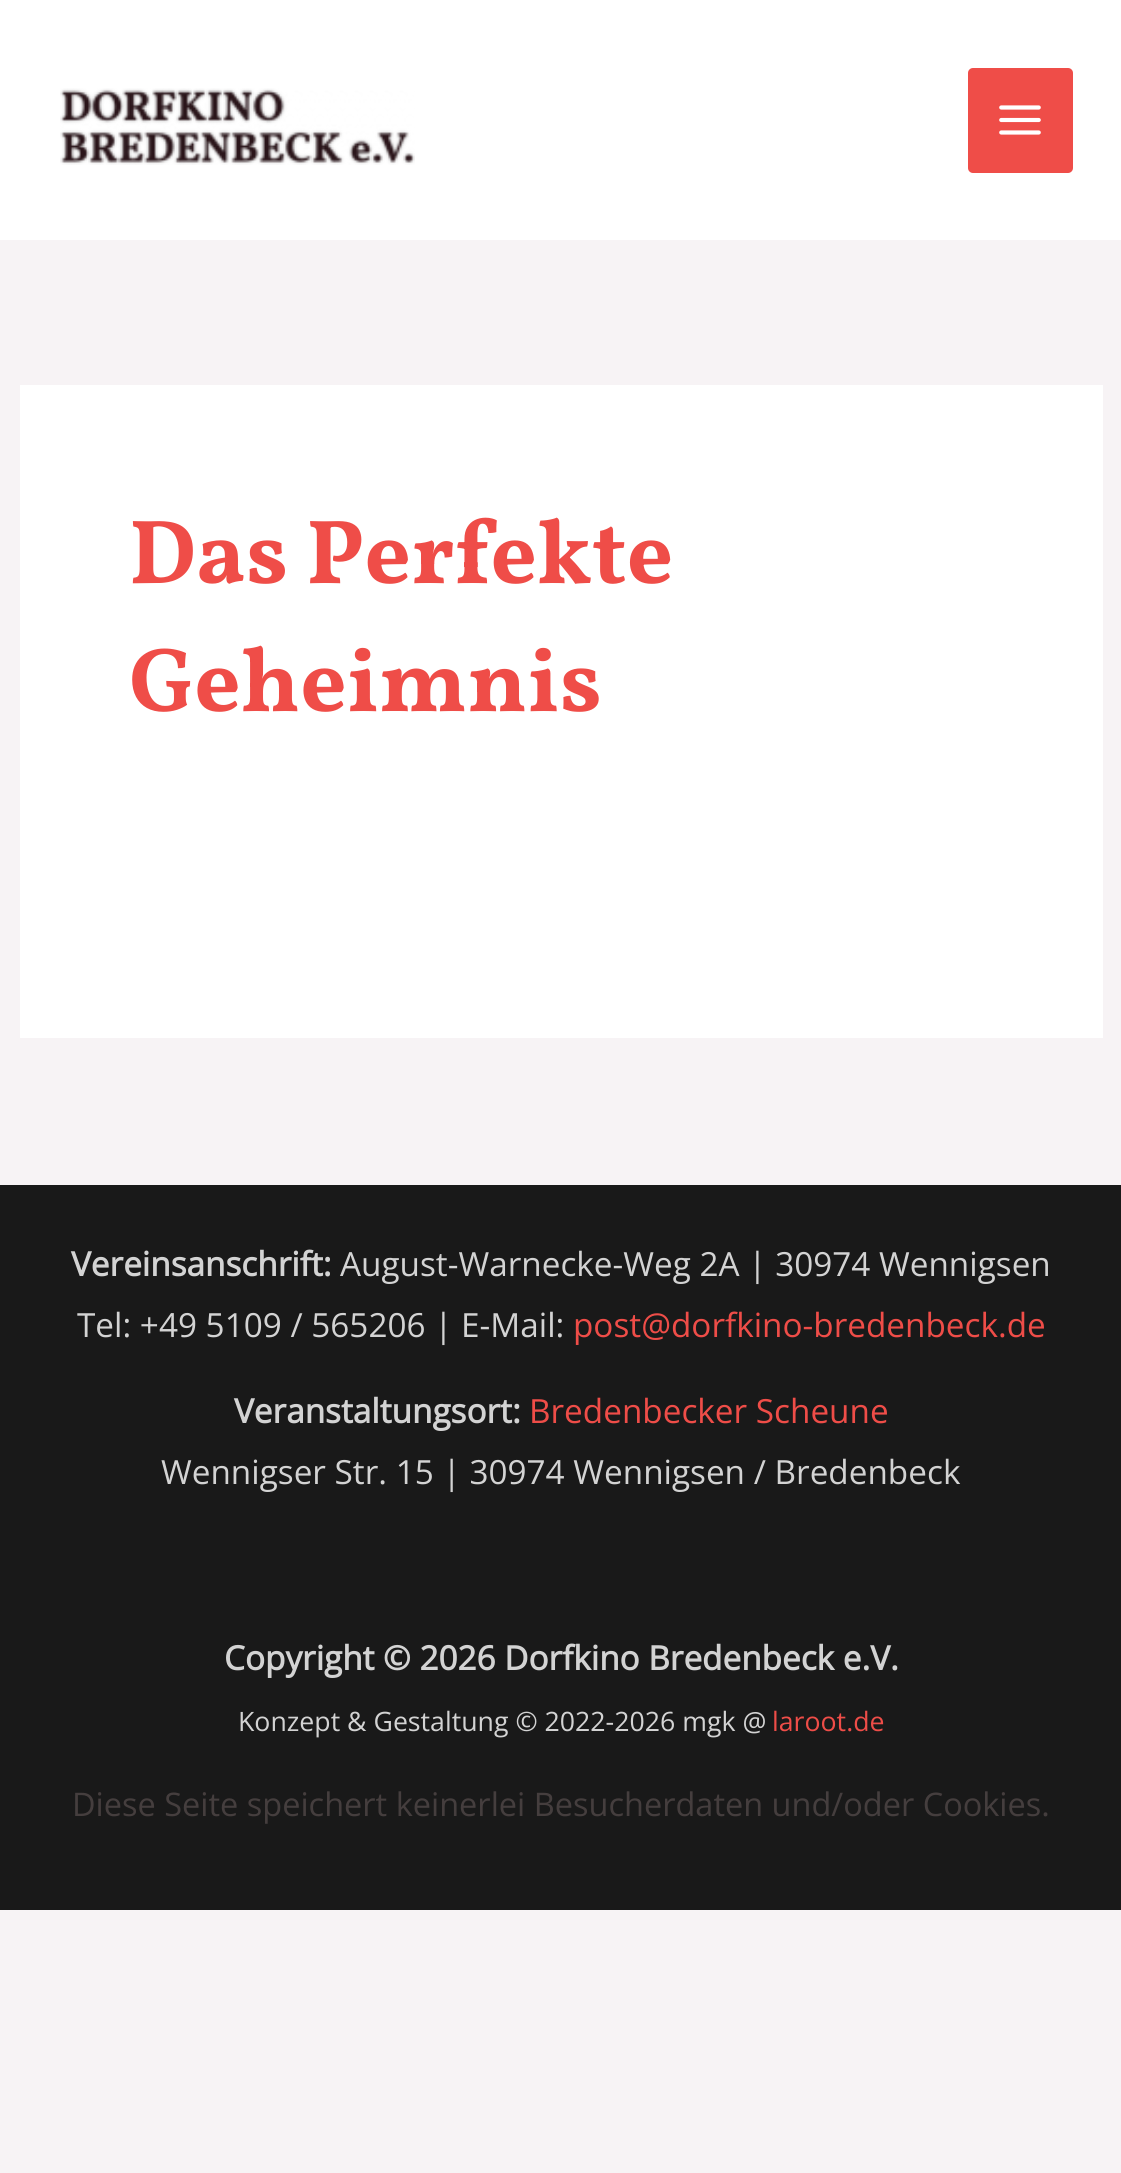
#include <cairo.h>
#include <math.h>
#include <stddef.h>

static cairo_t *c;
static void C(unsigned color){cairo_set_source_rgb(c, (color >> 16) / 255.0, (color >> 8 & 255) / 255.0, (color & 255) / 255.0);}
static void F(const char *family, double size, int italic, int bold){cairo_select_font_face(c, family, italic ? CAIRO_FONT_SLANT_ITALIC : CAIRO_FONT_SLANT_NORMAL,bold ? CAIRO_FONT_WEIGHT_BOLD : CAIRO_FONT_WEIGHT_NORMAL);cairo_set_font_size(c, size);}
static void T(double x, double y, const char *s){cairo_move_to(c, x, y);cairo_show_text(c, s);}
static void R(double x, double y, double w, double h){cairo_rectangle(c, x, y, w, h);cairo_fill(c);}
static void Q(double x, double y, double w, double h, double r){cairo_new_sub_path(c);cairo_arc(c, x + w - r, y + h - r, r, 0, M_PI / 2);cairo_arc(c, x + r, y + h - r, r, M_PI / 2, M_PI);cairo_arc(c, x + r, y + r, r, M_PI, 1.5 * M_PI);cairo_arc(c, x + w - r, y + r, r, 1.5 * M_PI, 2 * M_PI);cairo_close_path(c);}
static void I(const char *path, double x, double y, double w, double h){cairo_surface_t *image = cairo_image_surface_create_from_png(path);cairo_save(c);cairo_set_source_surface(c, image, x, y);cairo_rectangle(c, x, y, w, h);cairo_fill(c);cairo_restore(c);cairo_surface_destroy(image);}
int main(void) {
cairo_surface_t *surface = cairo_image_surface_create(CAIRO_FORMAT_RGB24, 1121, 2173);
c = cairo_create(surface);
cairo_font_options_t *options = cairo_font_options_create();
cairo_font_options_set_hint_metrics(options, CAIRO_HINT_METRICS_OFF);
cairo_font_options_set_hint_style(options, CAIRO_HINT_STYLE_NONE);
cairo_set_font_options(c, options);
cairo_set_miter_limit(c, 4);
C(0xf7f3f5);
cairo_paint(c);
C(0xffffff);
R(0,0,1121,240);
I("1.png",60,88,355,77);
C(0xef4d48);
Q(968,68,105,105,5);
cairo_fill(c);
I("2.png",999,105,42,30);
C(0xffffff);
R(20,385,1083,653);
F("Vollkorn",91.25,0,1);
C(0xef4d48);
T(129,583,"Das Perfekte");
T(129,711,"Geheimnis");
C(0x191919);
R(0,1185,1121,725);
F("Open Sans",33.3,0,1);
C(0xd3d3d3);
T(71,1276,"Vereinsanschrift:");
F("Open Sans",33.3,0,0);
T(340,1276,"August-Warnecke-Weg 2A | 30974 Wennigsen");
T(77,1337,"Tel: +49 5109 / 565206 | E-Mail:");
C(0xef4d48);
T(573,1337,"post@dorfkino-bredenbeck.de");
F("Open Sans",33.3,0,1);
C(0xd3d3d3);
T(234,1423,"Veranstaltungsort:");
F("Open Sans",33.3,0,0);
C(0xef4d48);
T(529,1423,"Bredenbecker Scheune");
C(0xd3d3d3);
T(161,1484,"Wennigser Str. 15 | 30974 Wennigsen / Bredenbeck");
F("Open Sans",33.3,0,1);
T(224,1670,"Copyright © 2026 Dorfkino Bredenbeck e.V.");
F("Open Sans",26.7,0,0);
T(238,1731,"Konzept & Gestaltung © 2022-2026 mgk @");
C(0xef4d48);
T(772,1731,"laroot.de");
F("Open Sans",32.5,0,0);
C(0x453e3e);
T(72,1816,"Diese Seite speichert keinerlei Besucherdaten und/oder Cookies.");
cairo_surface_write_to_png(surface, "o.png");
cairo_font_options_destroy(options);
cairo_destroy(c);
cairo_surface_destroy(surface);
return 0;
}
